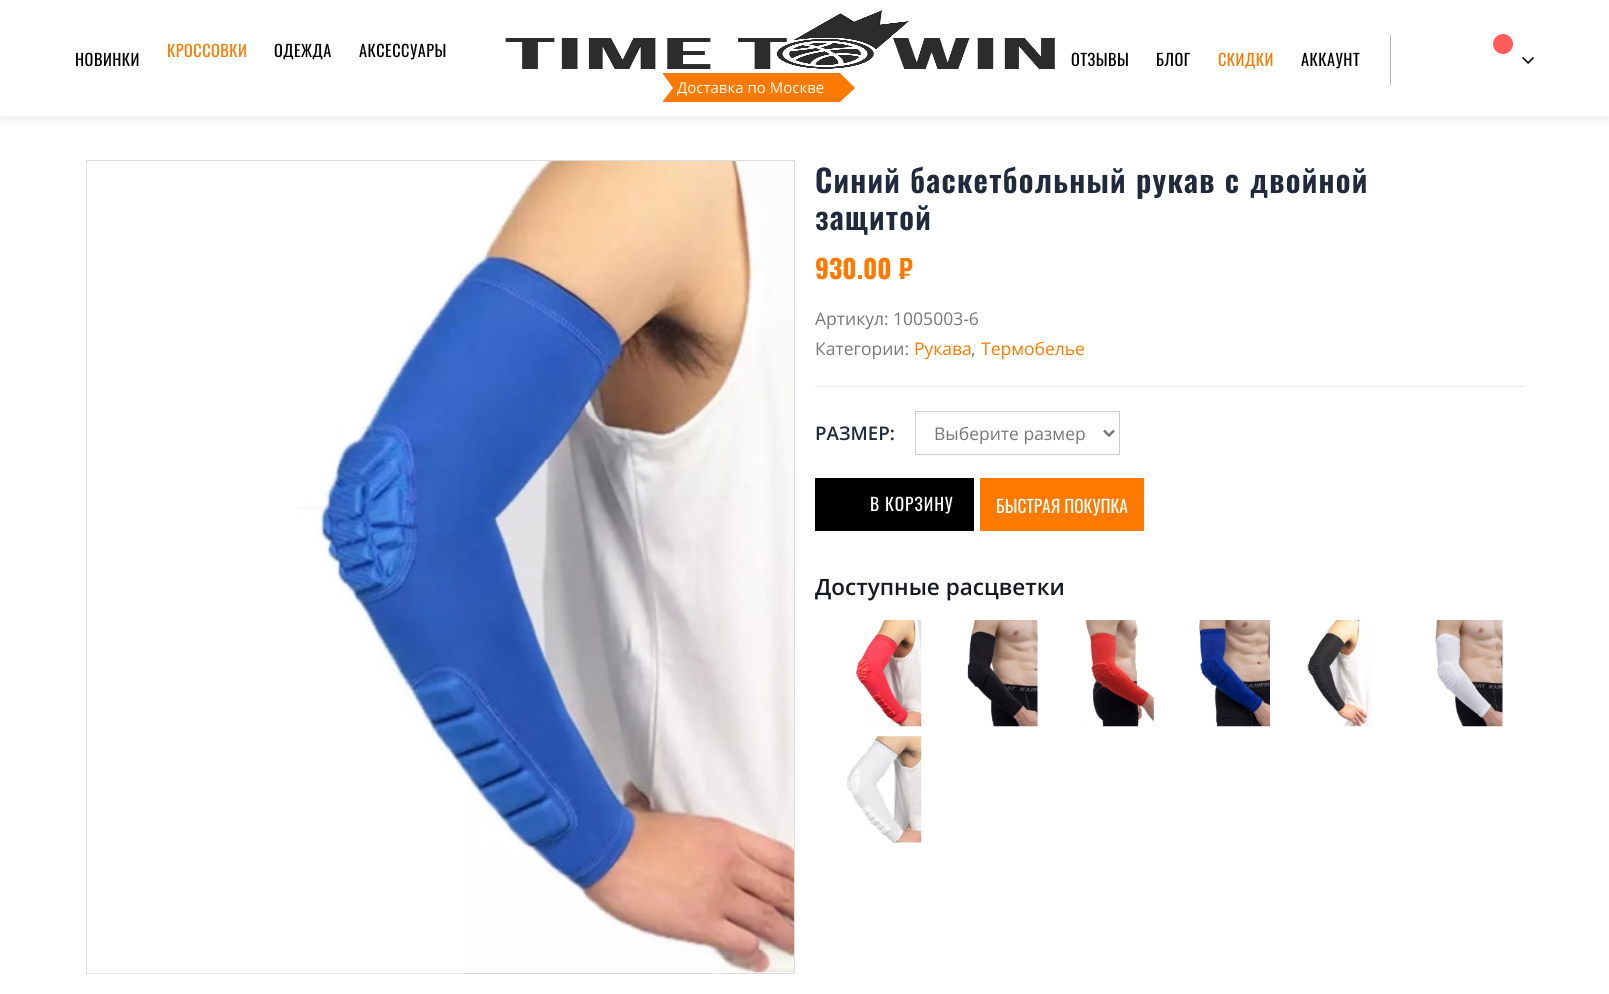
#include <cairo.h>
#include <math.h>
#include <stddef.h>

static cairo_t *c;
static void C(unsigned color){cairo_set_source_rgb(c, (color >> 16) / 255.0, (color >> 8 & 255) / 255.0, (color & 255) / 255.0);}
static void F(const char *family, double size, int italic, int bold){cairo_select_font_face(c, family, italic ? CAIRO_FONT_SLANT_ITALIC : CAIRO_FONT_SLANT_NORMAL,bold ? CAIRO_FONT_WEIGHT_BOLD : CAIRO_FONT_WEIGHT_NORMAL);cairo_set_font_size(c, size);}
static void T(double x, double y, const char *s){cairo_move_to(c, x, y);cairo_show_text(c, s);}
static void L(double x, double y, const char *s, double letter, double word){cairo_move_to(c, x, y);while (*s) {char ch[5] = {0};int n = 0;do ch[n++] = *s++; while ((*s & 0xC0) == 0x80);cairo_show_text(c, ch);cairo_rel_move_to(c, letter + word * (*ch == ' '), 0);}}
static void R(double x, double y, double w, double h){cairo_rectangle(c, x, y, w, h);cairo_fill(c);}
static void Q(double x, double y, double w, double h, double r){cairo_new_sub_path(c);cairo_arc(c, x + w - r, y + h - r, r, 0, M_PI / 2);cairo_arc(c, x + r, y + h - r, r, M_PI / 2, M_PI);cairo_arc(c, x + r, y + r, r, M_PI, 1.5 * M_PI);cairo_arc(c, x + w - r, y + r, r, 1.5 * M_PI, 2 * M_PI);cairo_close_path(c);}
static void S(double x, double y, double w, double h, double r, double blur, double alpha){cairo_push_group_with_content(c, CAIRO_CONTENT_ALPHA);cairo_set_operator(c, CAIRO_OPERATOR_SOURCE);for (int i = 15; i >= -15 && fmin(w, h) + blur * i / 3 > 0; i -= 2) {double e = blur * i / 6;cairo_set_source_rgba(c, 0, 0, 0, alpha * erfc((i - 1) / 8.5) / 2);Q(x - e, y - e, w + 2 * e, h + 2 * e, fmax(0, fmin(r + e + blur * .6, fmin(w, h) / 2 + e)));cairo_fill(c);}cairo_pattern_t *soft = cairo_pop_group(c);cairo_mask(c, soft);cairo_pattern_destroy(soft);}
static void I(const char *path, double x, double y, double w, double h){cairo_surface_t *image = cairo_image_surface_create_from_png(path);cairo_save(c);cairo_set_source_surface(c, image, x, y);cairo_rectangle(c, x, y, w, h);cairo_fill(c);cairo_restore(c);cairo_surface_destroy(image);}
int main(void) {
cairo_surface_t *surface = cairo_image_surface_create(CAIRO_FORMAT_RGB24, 1609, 994);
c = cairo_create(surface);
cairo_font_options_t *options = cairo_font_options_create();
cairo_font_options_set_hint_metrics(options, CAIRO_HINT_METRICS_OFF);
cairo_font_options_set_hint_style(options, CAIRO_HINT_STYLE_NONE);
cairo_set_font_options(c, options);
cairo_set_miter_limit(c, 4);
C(0xffffff);
cairo_paint(c);
cairo_save(c);
cairo_rectangle(c,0,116,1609,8);
cairo_clip(c);
C(0x000000);
S(0,-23,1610,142,0,7.5,.08);
cairo_restore(c);
F("Oswald",16.25,0,0);
C(0x000000);
L(75,66,"НОВИНКИ",.5,0);
C(0xfe7900);
L(167,57,"КРОССОВКИ",.5,0);
C(0x000000);
L(274,57,"ОДЕЖДА",.5,0);
L(359,57,"АКСЕССУАРЫ",.5,0);
L(1071,66,"ОТЗЫВЫ",.5,0);
L(1156,66,"БЛОГ",.5,0);
C(0xfe7900);
L(1218,66,"СКИДКИ",.5,0);
C(0x000000);
L(1301,66,"АККАУНТ",.5,0);
I("1.png",505,10,550,59);
C(0xfe7900);
cairo_new_path(c);
cairo_move_to(c,663,73);
cairo_line_to(c,840,73);
cairo_line_to(c,855,88);
cairo_line_to(c,840,102);
cairo_line_to(c,663,102);
cairo_line_to(c,663,101);
cairo_line_to(c,673,88);
cairo_line_to(c,663,74);
cairo_close_path(c);
cairo_fill(c);
F("Open Sans",15,0,0);
C(0xffffff);
T(677,93,"Доставка по Москве");
C(0xb3b3b3);
R(1390,35,1,50);
C(0xff5b5b);
cairo_new_path(c);
cairo_arc(c,1503,44,10,0,2 * M_PI);
cairo_fill(c);
I("2.png",1522,57,12,7);
cairo_rectangle(c,86.5,160.5,708,813);
C(0xdddddd);
cairo_set_line_width(c,1);
cairo_stroke(c);
I("3.png",297,161,497,812);
F("Oswald SemiBold",31.25,0,0);
C(0x21293c);
L(815,193,"Синий баскетбольный рукав с двойной",1.25,0);
L(815,230,"защитой",1.25,0);
F("Oswald",26,0,1);
C(0xfe7900);
T(815,279,"930.00 ₽");
C(0xebebeb);
R(815,386,709,1);
F("Open Sans",17.5,0,0);
C(0x777777);
T(815,325,"Артикул: 1005003-6");
T(815,355,"Категории:");
C(0xfe7900);
T(914,355,"Рукава");
C(0x777777);
T(971,355,",");
C(0xfe7900);
T(981,355,"Термобелье");
F("Open Sans SemiBold",18.75,0,0);
C(0x21293c);
T(815,440,"РАЗМЕР:");
C(0xececec);
R(916,413,203,1);
cairo_rectangle(c,915.5,411.5,204,43);
C(0xcccccc);
cairo_stroke(c);
cairo_new_path(c);
cairo_move_to(c,1104,430.5);
cairo_line_to(c,1109,435.5);
cairo_line_to(c,1114,430.5);
C(0x777777);
cairo_set_line_width(c,2.5);
cairo_stroke(c);
F("Open Sans",17.5,0,0);
T(934,440,"Выберите размер");
C(0x000000);
R(815,478,159,53);
F("Oswald",17.5,0,0);
C(0xffffff);
L(870,511,"В КОРЗИНУ",.9,0);
C(0xfe7900);
R(980,478,164,53);
C(0xffffff);
T(996,513,"БЫСТРАЯ ПОКУПКА");
F("Open Sans SemiBold",22.5,0,0);
C(0x141a1f);
T(815,595,"Доступные расцветки");
I("4.png",855,620,67,107);
I("5.png",967,620,71,107);
I("6.png",1085,620,69,107);
I("7.png",1199,620,71,107);
I("8.png",1307,620,66,107);
I("9.png",1435,620,68,107);
I("10.png",847,736,75,107);
cairo_surface_write_to_png(surface, "o.png");
cairo_font_options_destroy(options);
cairo_destroy(c);
cairo_surface_destroy(surface);
return 0;
}
